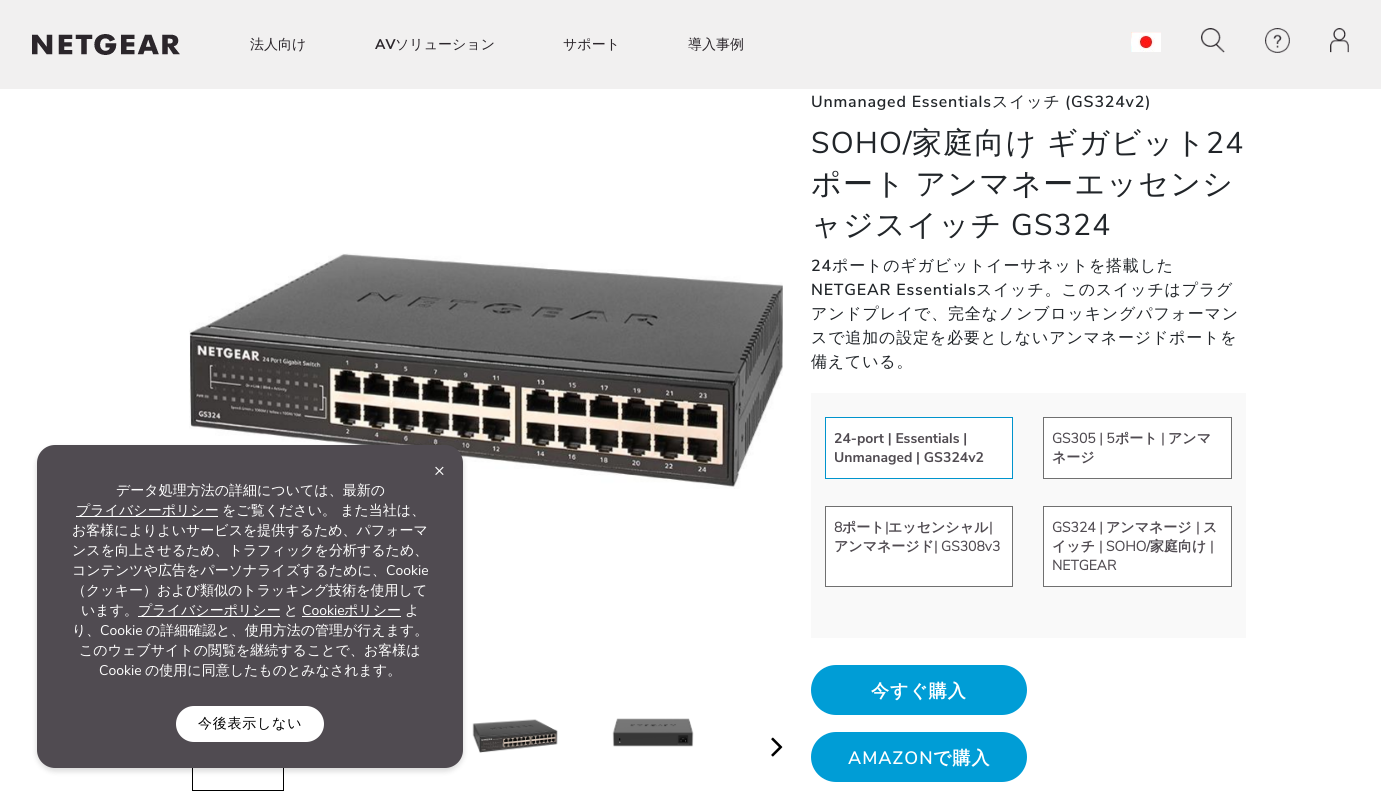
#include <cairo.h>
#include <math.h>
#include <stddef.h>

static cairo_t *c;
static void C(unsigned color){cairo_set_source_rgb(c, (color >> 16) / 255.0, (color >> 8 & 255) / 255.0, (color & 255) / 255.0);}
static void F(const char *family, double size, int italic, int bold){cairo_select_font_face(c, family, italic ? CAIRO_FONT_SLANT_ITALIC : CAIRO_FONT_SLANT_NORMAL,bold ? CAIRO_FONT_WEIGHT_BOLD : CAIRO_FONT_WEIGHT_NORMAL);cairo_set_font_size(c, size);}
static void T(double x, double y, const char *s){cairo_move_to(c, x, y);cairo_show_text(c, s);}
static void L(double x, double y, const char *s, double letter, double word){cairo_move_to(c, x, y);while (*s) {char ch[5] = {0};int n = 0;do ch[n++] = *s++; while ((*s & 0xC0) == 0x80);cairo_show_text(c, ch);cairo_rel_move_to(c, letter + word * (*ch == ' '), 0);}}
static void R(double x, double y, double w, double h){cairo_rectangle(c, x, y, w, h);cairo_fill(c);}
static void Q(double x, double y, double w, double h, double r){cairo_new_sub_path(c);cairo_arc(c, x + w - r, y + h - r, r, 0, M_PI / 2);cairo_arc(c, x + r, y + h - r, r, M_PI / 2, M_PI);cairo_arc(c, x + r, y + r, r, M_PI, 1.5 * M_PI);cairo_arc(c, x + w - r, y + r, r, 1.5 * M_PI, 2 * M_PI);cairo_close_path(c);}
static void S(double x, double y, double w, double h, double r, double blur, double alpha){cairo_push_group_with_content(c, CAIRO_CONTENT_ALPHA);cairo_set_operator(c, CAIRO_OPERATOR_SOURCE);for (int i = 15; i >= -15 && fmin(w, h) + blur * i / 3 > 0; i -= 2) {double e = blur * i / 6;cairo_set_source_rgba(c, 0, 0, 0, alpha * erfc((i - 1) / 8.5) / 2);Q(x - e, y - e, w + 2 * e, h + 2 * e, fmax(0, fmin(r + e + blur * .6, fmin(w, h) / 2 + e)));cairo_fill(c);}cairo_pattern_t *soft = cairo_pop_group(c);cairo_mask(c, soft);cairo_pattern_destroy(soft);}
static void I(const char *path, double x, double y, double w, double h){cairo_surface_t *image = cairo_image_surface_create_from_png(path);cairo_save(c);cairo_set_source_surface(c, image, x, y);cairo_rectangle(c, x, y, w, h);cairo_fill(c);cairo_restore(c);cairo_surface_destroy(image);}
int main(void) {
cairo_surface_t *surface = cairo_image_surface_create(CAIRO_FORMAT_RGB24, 1381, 798);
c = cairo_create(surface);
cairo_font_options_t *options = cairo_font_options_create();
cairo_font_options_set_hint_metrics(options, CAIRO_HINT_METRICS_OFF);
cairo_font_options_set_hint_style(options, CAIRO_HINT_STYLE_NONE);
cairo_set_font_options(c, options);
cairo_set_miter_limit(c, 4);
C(0xffffff);
cairo_paint(c);
C(0xf1f0f0);
R(0,0,1381,89);
I("1.png",32,34,148,21);
F("WenQuanYi Zen Hei Medium",14,0,0);
C(0x2b262b);
T(250,49,"法人向け");
F("Nunito Sans",14,0,1);
T(375,49,"AV");
F("WenQuanYi Zen Hei Medium",14,0,0);
T(395,49,"ソリューション");
T(563,49,"サポート");
T(688,49,"導入事例");
I("2.png",1131,32,30,20);
I("3.png",1201,28,24,25);
I("4.png",1265,28,25,25);
I("5.png",1330,28,19,25);
I("6.png",189,253,594,236);
cairo_rectangle(c,192.5,686.5,91,104);
C(0x000000);
cairo_set_line_width(c,1);
cairo_stroke(c);
I("7.png",472,719,86,34);
C(0x000000);
S(37,448,426,323,18,3,.16);
C(0x504b51);
Q(37,445,426,323,18);
cairo_fill(c);
F("Nunito Sans",18,0,0);
C(0xffffff);
T(434,476,"×");
F("WenQuanYi Zen Hei Medium",14,0,0);
T(116,495,"データ処理方法の詳細については、最新の");
R(76,516,142,1);
T(76,515,"プライバシーポリシー");
T(222,515,"をご覧ください。 また当社は、");
T(72,535,"お客様によりよいサービスを提供するため、パフォーマ");
T(72,555,"ンスを向上させるため、トラフィックを分析するため、");
T(72,575,"コンテンツや広告をパーソナライズするために、");
F("Nunito Sans",14,0,0);
T(386,575,"Cookie");
F("WenQuanYi Zen Hei Medium",14,0,0);
T(72,595,"（クッキー）および類似のトラッキング技術を使用して");
T(81,615,"います。");
R(138,616,142,1);
T(138,615,"プライバシーポリシー");
T(284,615,"と");
F("Nunito Sans",14,0,0);
T(302,615,"Cookie");
R(302,616,99,1);
F("WenQuanYi Zen Hei Medium",14,0,0);
T(344,615,"ポリシー");
T(405,615,"よ");
T(72,635,"り、");
F("Nunito Sans",14,0,0);
T(100,635,"Cookie");
F("WenQuanYi Zen Hei Medium",14,0,0);
T(146,635,"の詳細確認と、使用方法の管理が行えます。");
T(79,655,"このウェブサイトの閲覧を継続することで、お客様は");
F("Nunito Sans",14,0,0);
T(99,675,"Cookie");
F("WenQuanYi Zen Hei Medium",14,0,0);
T(145,675,"の使用に同意したものとみなされます。");
Q(177,707,146,34,17);
cairo_fill_preserve(c);
cairo_set_line_width(c,2);
cairo_stroke(c);
C(0x000000);
L(198,728,"今後表示しない",.75,0);
I("8.png",612,718,82,29);
I("9.png",771,737,12,20);
F("Nunito Sans SemiBold",16,0,0);
C(0x212529);
L(811,107,"Unmanaged Essentials",.8,0);
F("WenQuanYi Zen Hei Medium",16,0,0);
L(992,107,"スイッチ",.8,0);
F("Nunito Sans SemiBold",16,0,0);
L(1065,107,"(GS324v2)",.8,0);
F("Nunito Sans",30,0,0);
L(811,153,"SOHO/",1.25,0);
F("WenQuanYi Zen Hei Medium",30,0,0);
L(912,153,"家庭向け ギガビット",1.25,-1);
F("Nunito Sans",30,0,0);
L(1206,153,"24",1.25,0);
F("WenQuanYi Zen Hei Medium",30,0,0);
L(811,194,"ポート アンマネーエッセンシ",1.25,-1);
L(811,235,"ャジスイッチ",1.25,0);
F("Nunito Sans",30,0,0);
L(1011,235,"GS324",1.25,0);
F("Nunito Sans SemiBold",16,0,0);
L(811,271,"24",.8,0);
F("WenQuanYi Zen Hei Medium",16,0,0);
L(832,271,"ポートのギガビットイーサネットを搭載した",.8,0);
F("Nunito Sans SemiBold",16,0,0);
L(811,295,"NETGEAR Essentials",.8,0);
F("WenQuanYi Zen Hei Medium",16,0,0);
L(976,295,"スイッチ。このスイッチはプラグ",.8,0);
L(811,319,"アンドプレイで、完全なノンブロッキングパフォーマン",.8,0);
L(811,343,"スで追加の設定を必要としないアンマネージドポートを",.8,0);
L(811,367,"備えている。",.8,0);
C(0xf9f9f9);
R(811,393,435,245);
C(0xffffff);
cairo_rectangle(c,825.5,417.5,187,61);
cairo_fill_preserve(c);
C(0x0094cd);
cairo_set_line_width(c,1);
cairo_stroke(c);
F("Nunito Sans",14,0,1);
C(0x504b51);
T(834,443,"24-port | Essentials |");
T(834,462,"Unmanaged | GS324v2");
C(0xffffff);
cairo_rectangle(c,1043.5,417.5,188,61);
cairo_fill_preserve(c);
C(0x707070);
cairo_stroke(c);
F("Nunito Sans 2",14,0,1);
C(0x504b51);
T(1052,443,"GS305 | 5");
F("WenQuanYi Zen Hei",14,0,1);
T(1115,443,"ポート");
F("Nunito Sans 2",14,0,1);
T(1161,443,"|");
F("WenQuanYi Zen Hei",14,0,1);
T(1168,443,"アンマ");
T(1052,462,"ネージ");
C(0xffffff);
cairo_rectangle(c,825.5,506.5,187,80);
cairo_fill_preserve(c);
C(0x707070);
cairo_stroke(c);
F("Nunito Sans 2",14,0,1);
C(0x504b51);
T(834,532,"8");
F("WenQuanYi Zen Hei",14,0,1);
T(842,532,"ポート");
F("Nunito Sans 2",14,0,1);
T(885,532,"|");
F("WenQuanYi Zen Hei",14,0,1);
T(888,532,"エッセンシャル");
F("Nunito Sans 2",14,0,1);
T(989,532,"|");
F("WenQuanYi Zen Hei",14,0,1);
T(834,551,"アンマネージド");
F("Nunito Sans 2",14,0,1);
T(934,551,"| GS308v3");
C(0xffffff);
cairo_rectangle(c,1043.5,506.5,188,80);
cairo_fill_preserve(c);
C(0x707070);
cairo_stroke(c);
C(0x504b51);
T(1052,532,"GS324 |");
F("WenQuanYi Zen Hei",14,0,1);
T(1106,532,"アンマネージ");
F("Nunito Sans 2",14,0,1);
T(1196,532,"|");
F("WenQuanYi Zen Hei",14,0,1);
T(1203,532,"ス");
T(1052,551,"イッチ");
F("Nunito Sans 2",14,0,1);
T(1099,551,"| SOHO/");
F("WenQuanYi Zen Hei",14,0,1);
T(1150,551,"家庭向け");
F("Nunito Sans 2",14,0,1);
T(1210,551,"|");
T(1052,570,"NETGEAR");
C(0x009dd6);
Q(811,665,216,50,25);
cairo_fill(c);
F("WenQuanYi Zen Hei",18,0,1);
C(0xffffff);
L(871,697,"今すぐ購入",1,0);
C(0x009dd6);
Q(811,732,216,50,25);
cairo_fill(c);
F("Nunito Sans SemiBold",18,0,0);
C(0xffffff);
L(848,764,"AMAZON",1,0);
F("WenQuanYi Zen Hei",18,0,1);
L(933,764,"で購入",1,0);
cairo_surface_write_to_png(surface, "o.png");
cairo_font_options_destroy(options);
cairo_destroy(c);
cairo_surface_destroy(surface);
return 0;
}
